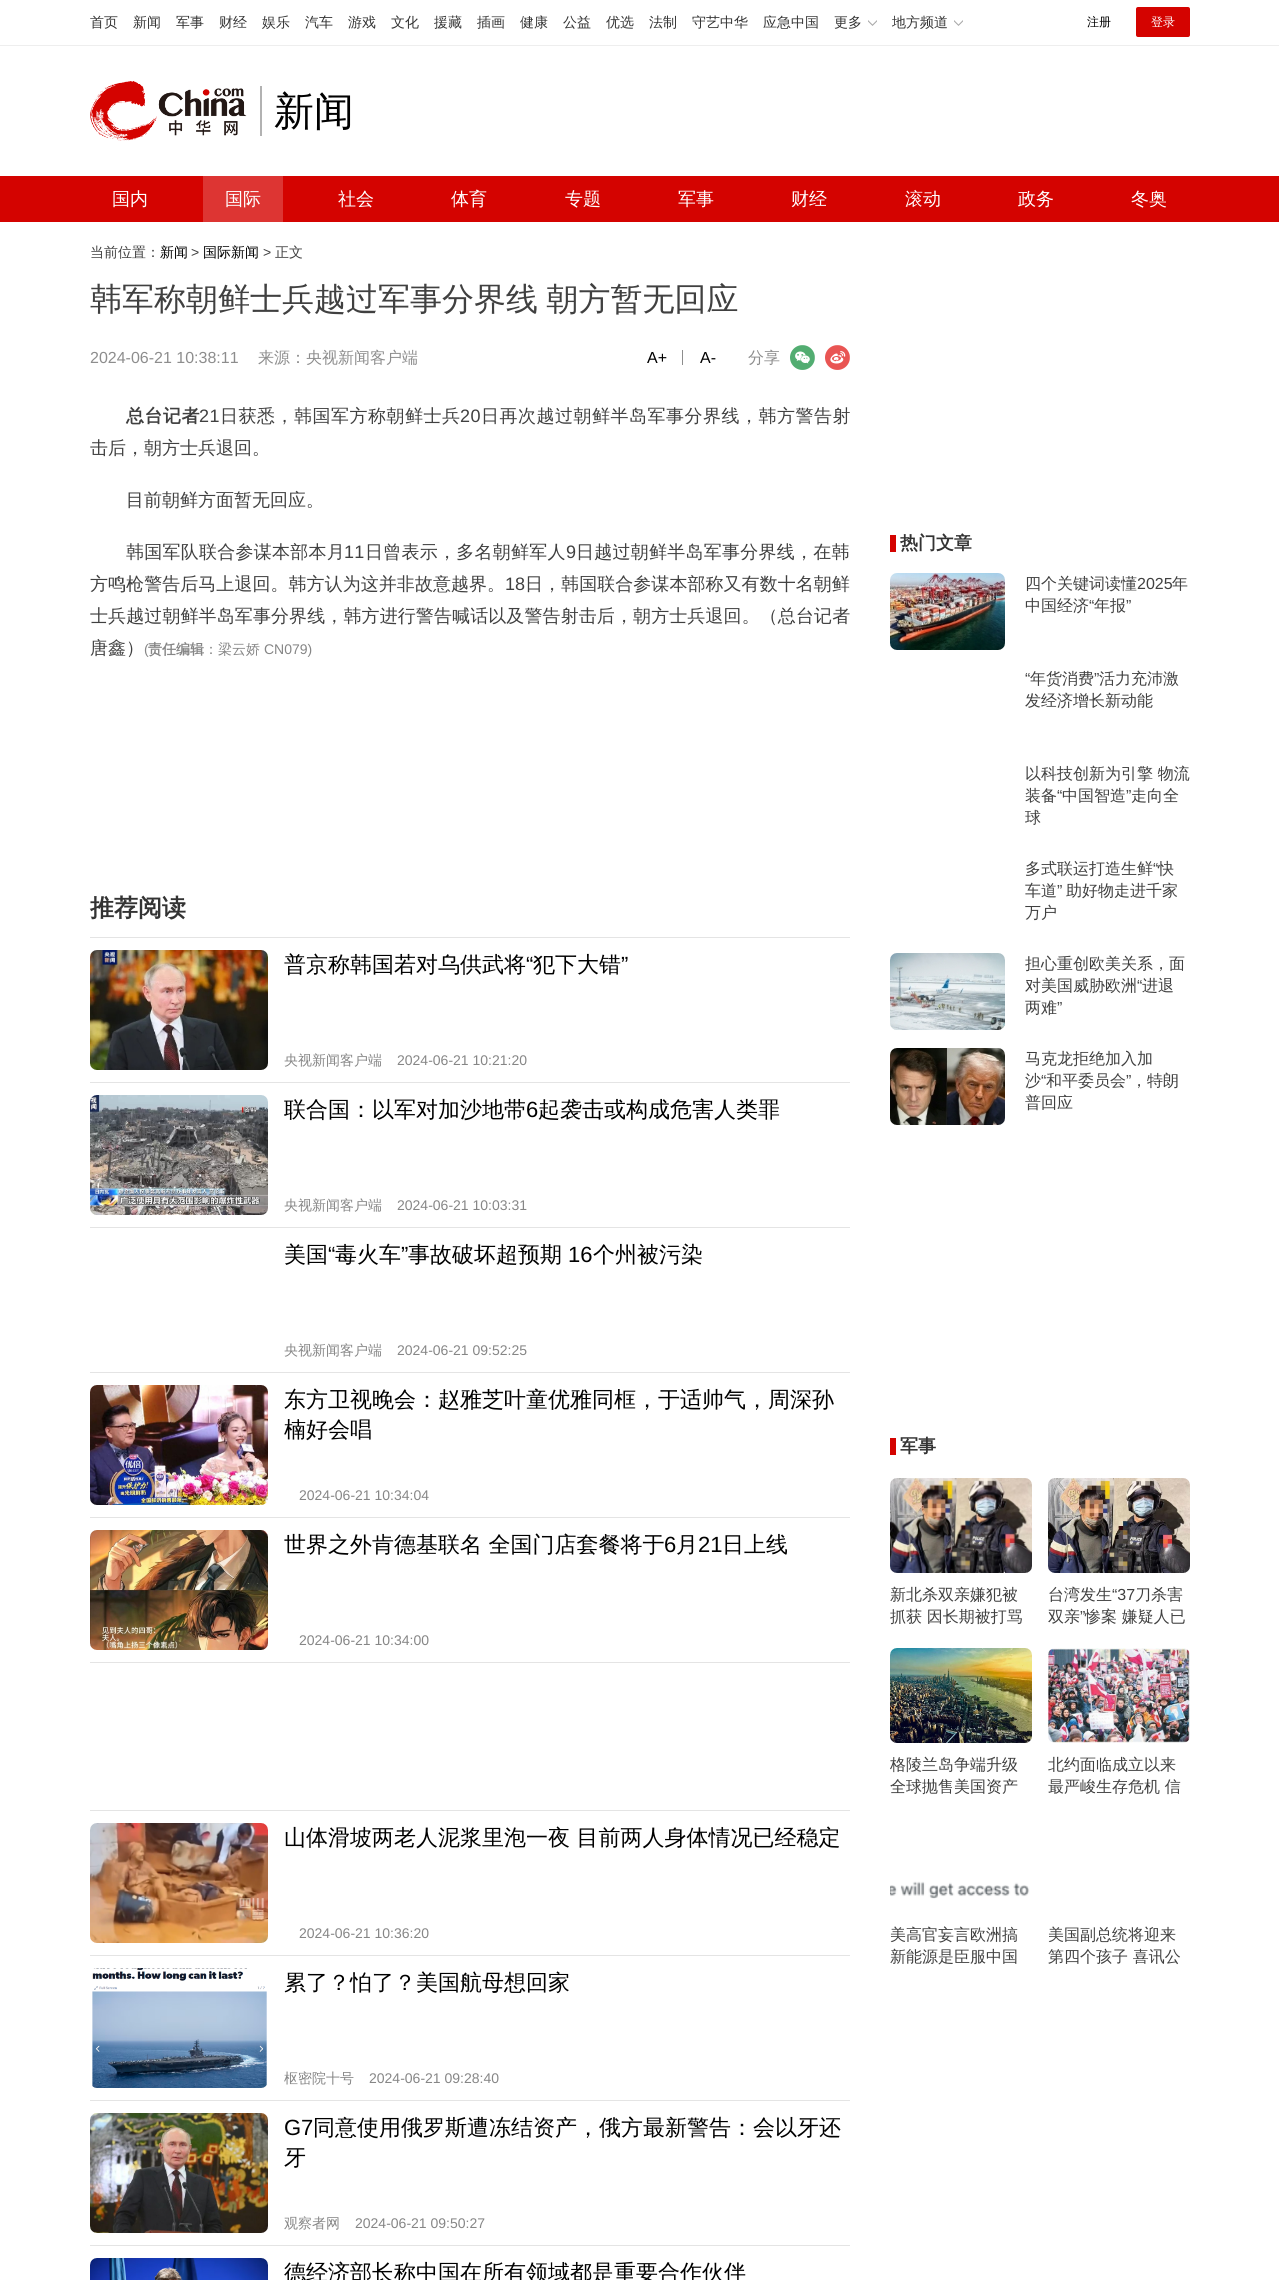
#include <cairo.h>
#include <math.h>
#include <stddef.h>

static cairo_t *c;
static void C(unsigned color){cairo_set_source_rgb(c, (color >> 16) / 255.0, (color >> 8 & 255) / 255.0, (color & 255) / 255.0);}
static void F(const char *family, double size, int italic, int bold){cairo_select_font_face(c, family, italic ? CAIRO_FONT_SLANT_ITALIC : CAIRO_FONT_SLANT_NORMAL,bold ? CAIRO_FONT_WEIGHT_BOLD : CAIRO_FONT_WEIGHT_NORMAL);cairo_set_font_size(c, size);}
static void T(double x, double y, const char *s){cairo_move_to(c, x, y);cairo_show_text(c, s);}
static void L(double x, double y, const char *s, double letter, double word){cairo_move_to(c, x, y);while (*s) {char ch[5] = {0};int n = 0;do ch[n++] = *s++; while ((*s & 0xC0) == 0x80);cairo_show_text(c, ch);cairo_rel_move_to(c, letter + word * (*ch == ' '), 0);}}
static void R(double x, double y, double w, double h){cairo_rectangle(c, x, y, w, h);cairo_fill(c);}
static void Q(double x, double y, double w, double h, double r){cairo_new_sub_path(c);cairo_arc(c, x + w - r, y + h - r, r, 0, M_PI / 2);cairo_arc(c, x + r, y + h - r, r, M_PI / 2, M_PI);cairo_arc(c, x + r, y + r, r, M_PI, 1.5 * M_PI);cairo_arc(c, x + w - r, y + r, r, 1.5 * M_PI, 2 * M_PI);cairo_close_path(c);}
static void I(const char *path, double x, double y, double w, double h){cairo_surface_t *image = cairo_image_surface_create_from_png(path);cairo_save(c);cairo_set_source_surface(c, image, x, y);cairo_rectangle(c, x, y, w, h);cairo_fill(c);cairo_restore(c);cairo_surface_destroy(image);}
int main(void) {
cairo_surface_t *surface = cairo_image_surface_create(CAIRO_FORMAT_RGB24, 1279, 2280);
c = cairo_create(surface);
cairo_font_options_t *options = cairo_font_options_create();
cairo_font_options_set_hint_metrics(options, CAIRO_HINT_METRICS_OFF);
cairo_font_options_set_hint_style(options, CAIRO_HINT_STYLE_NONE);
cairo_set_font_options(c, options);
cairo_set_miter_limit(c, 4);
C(0xffffff);
cairo_paint(c);
C(0xeeeeee);
R(0,45,1279,1);
F("WenQuanYi Zen Hei Medium",14,0,0);
C(0x333333);
T(90,27,"首页");
T(133,27,"新闻");
T(176,27,"军事");
T(219,27,"财经");
T(262,27,"娱乐");
T(305,27,"汽车");
T(348,27,"游戏");
T(391,27,"文化");
T(434,27,"援藏");
T(477,27,"插画");
T(520,27,"健康");
T(563,27,"公益");
T(606,27,"优选");
T(649,27,"法制");
T(692,27,"守艺中华");
T(763,27,"应急中国");
T(834,27,"更多");
I("1.png",868,20,9,6);
T(892,27,"地方频道");
I("1.png",954,20,9,6);
F("WenQuanYi Zen Hei Medium",12,0,0);
C(0x000000);
T(1087,26,"注册");
C(0xd40300);
Q(1136,7,54,30,2);
cairo_fill(c);
C(0xffffff);
T(1151,26,"登录");
I("2.png",90,81,157,60);
C(0xb2b2b2);
R(260,86,2,50);
F("WenQuanYi Zen Hei Medium",40,0,0);
C(0x000000);
T(274,125,"新闻");
C(0xd40300);
R(0,176,1279,46);
F("WenQuanYi Zen Hei Medium",18,0,0);
C(0xffffff);
T(112,205,"国内");
C(0xdd3533);
R(203,176,80,46);
C(0xffffff);
T(225,205,"国际");
T(338,205,"社会");
T(451,205,"体育");
T(565,205,"专题");
T(678,205,"军事");
T(791,205,"财经");
T(905,205,"滚动");
T(1018,205,"政务");
T(1131,205,"冬奥");
F("WenQuanYi Zen Hei Medium",14,0,0);
C(0x404040);
T(90,257,"当前位置：");
C(0x000000);
T(160,257,"新闻");
F("Liberation Sans",14,0,0);
C(0x404040);
T(191,257,">");
F("WenQuanYi Zen Hei Medium",14,0,0);
C(0x000000);
T(203,257,"国际新闻");
F("Liberation Sans",14,0,0);
C(0x404040);
T(263,257,">");
F("WenQuanYi Zen Hei Medium",14,0,0);
T(275,257,"正文");
F("WenQuanYi Zen Hei Medium",32,0,0);
L(90,310,"韩军称朝鲜士兵越过军事分界线 朝方暂无回应",0,-1);
F("Liberation Sans",16,0,0);
C(0x8d8d8d);
T(90,363,"2024-06-21 10:38:11");
F("WenQuanYi Zen Hei Medium",16,0,0);
T(258,363,"来源：央视新闻客户端");
F("Liberation Sans",16,0,0);
C(0x000000);
T(647,363,"A+");
C(0x8d8d8d);
R(682,350,1,15);
C(0x000000);
T(700,363,"A-");
F("WenQuanYi Zen Hei Medium",16,0,0);
C(0x8d8d8d);
T(748,363,"分享");
I("3.png",790,345,25,25);
I("4.png",825,345,25,25);
F("WenQuanYi Zen Hei",18,0,1);
C(0x404040);
L(126,422,"总台记者",.5,0);
F("Liberation Sans",18,0,0);
L(199,422,"21",.5,0);
F("WenQuanYi Zen Hei Medium",18,0,0);
L(220,422,"日获悉，韩国军方称朝鲜士兵",.5,0);
F("Liberation Sans",18,0,0);
L(460,422,"20",.5,0);
F("WenQuanYi Zen Hei Medium",18,0,0);
L(481,422,"日再次越过朝鲜半岛军事分界线，韩方警告射",.5,0);
T(90,454,"击后，朝方士兵退回。");
T(126,506,"目前朝鲜方面暂无回应。");
L(126,558,"韩国军队联合参谋本部本月",.25,0);
F("Liberation Sans",18,0,0);
L(344,558,"11",.25,0);
F("WenQuanYi Zen Hei Medium",18,0,0);
L(365,558,"日曾表示，多名朝鲜军人",.25,0);
F("Liberation Sans",18,0,0);
L(566,558,"9",.25,0);
F("WenQuanYi Zen Hei Medium",18,0,0);
L(576,558,"日越过朝鲜半岛军事分界线，在韩",.25,0);
L(90,590,"方鸣枪警告后马上退回。韩方认为这并非故意越界。",.05,0);
F("Liberation Sans",18,0,0);
L(505,590,"18",.05,0);
F("WenQuanYi Zen Hei Medium",18,0,0);
L(525,590,"日，韩国联合参谋本部称又有数十名朝鲜",.05,0);
L(90,622,"士兵越过朝鲜半岛军事分界线，韩方进行警告喊话以及警告射击后，朝方士兵退回。（总台记者",.1,0);
T(90,654,"唐鑫）");
F("Liberation Sans",14,0,0);
C(0x868686);
T(144,654,"(");
F("WenQuanYi Zen Hei",14,0,1);
T(148,654,"责任编辑");
F("WenQuanYi Zen Hei Medium",14,0,0);
T(204,654,"：梁云娇");
F("Liberation Sans",14,0,0);
T(264,654,"CN079)");
F("WenQuanYi Zen Hei",24,0,1);
C(0x333333);
T(90,916,"推荐阅读");
C(0xe4e4e4);
R(90,937,760,1);
I("5.png",90,950,178,120);
F("WenQuanYi Zen Hei Medium",22,0,0);
C(0x000000);
T(284,972,"普京称韩国若对乌供武将");
F("Liberation Sans",22,0,0);
T(526,972,"“");
F("WenQuanYi Zen Hei Medium",22,0,0);
T(533,972,"犯下大错");
F("Liberation Sans",22,0,0);
T(621,972,"”");
F("WenQuanYi Zen Hei Medium",14,0,0);
C(0x868686);
T(284,1065,"央视新闻客户端");
F("Liberation Sans",14,0,0);
T(397,1065,"2024-06-21 10:21:20");
C(0xe4e4e4);
R(90,1082,760,1);
I("6.png",90,1095,178,120);
cairo_save(c);
cairo_rectangle(c,284,1095,566,90);
cairo_clip(c);
F("WenQuanYi Zen Hei Medium",22,0,0);
C(0x000000);
T(284,1117,"联合国：以军对加沙地带");
cairo_restore(c);
F("Liberation Sans",22,0,0);
C(0x000000);
T(526,1117,"6");
F("WenQuanYi Zen Hei Medium",22,0,0);
T(538,1117,"起袭击或构成危害人类罪");
F("WenQuanYi Zen Hei Medium",14,0,0);
C(0x868686);
T(284,1210,"央视新闻客户端");
F("Liberation Sans",14,0,0);
T(397,1210,"2024-06-21 10:03:31");
C(0xe4e4e4);
R(90,1227,760,1);
F("WenQuanYi Zen Hei Medium",22,0,0);
C(0x000000);
T(284,1262,"美国");
F("Liberation Sans",22,0,0);
T(328,1262,"“");
F("WenQuanYi Zen Hei Medium",22,0,0);
T(335,1262,"毒火车");
F("Liberation Sans",22,0,0);
T(401,1262,"”");
F("WenQuanYi Zen Hei Medium",22,0,0);
T(408,1262,"事故破坏超预期");
F("Liberation Sans",22,0,0);
T(568,1262,"16");
F("WenQuanYi Zen Hei Medium",22,0,0);
T(593,1262,"个州被污染");
F("WenQuanYi Zen Hei Medium",14,0,0);
C(0x868686);
T(284,1355,"央视新闻客户端");
F("Liberation Sans",14,0,0);
T(397,1355,"2024-06-21 09:52:25");
C(0xe4e4e4);
R(90,1372,760,1);
I("7.png",90,1385,178,120);
F("WenQuanYi Zen Hei Medium",22,0,0);
C(0x000000);
T(284,1407,"东方卫视晚会：赵雅芝叶童优雅同框，于适帅气，周深孙");
T(284,1437,"楠好会唱");
F("Liberation Sans",14,0,0);
C(0x868686);
T(299,1500,"2024-06-21 10:34:04");
C(0xe4e4e4);
R(90,1517,760,1);
I("8.png",90,1530,178,120);
F("WenQuanYi Zen Hei Medium",22,0,0);
C(0x000000);
T(284,1552,"世界之外肯德基联名 全国门店套餐将于");
F("Liberation Sans",22,0,0);
T(664,1552,"6");
F("WenQuanYi Zen Hei Medium",22,0,0);
T(676,1552,"月");
F("Liberation Sans",22,0,0);
T(698,1552,"21");
F("WenQuanYi Zen Hei Medium",22,0,0);
T(722,1552,"日上线");
F("Liberation Sans",14,0,0);
C(0x868686);
T(299,1645,"2024-06-21 10:34:00");
C(0xe4e4e4);
R(90,1662,760,1);
R(90,1810,760,1);
I("9.png",90,1823,178,120);
F("WenQuanYi Zen Hei Medium",22,0,0);
C(0x000000);
T(284,1845,"山体滑坡两老人泥浆里泡一夜 目前两人身体情况已经稳定");
F("Liberation Sans",14,0,0);
C(0x868686);
T(299,1938,"2024-06-21 10:36:20");
C(0xe4e4e4);
R(90,1955,760,1);
I("10.png",92,1968,175,120);
F("WenQuanYi Zen Hei Medium",22,0,0);
C(0x000000);
T(284,1990,"累了？怕了？美国航母想回家");
F("WenQuanYi Zen Hei Medium",14,0,0);
C(0x868686);
T(284,2083,"枢密院十号");
F("Liberation Sans",14,0,0);
T(369,2083,"2024-06-21 09:28:40");
C(0xe4e4e4);
R(90,2100,760,1);
I("11.png",90,2113,178,120);
F("Liberation Sans",22,0,0);
C(0x000000);
T(284,2135,"G7");
F("WenQuanYi Zen Hei Medium",22,0,0);
T(313,2135,"同意使用俄罗斯遭冻结资产，俄方最新警告：会以牙还");
T(284,2165,"牙");
F("WenQuanYi Zen Hei Medium",14,0,0);
C(0x868686);
T(284,2228,"观察者网");
F("Liberation Sans",14,0,0);
T(355,2228,"2024-06-21 09:50:27");
C(0xe4e4e4);
R(90,2245,760,1);
I("12.png",90,2258,178,22);
F("WenQuanYi Zen Hei Medium",22,0,0);
C(0x000000);
T(284,2280,"德经济部长称中国在所有领域都是重要合作伙伴");
C(0xd40300);
R(890,535,6,17);
F("WenQuanYi Zen Hei",18,0,1);
C(0x333333);
T(900,549,"热门文章");
I("13.png",890,573,115,77);
F("WenQuanYi Zen Hei Medium",16,0,0);
C(0x404040);
T(1025,589,"四个关键词读懂");
F("Liberation Sans",16,0,0);
T(1137,589,"2025");
F("WenQuanYi Zen Hei Medium",16,0,0);
T(1172,589,"年");
T(1025,611,"中国经济");
F("Liberation Sans",16,0,0);
T(1089,611,"“");
F("WenQuanYi Zen Hei Medium",16,0,0);
T(1094,611,"年报");
F("Liberation Sans",16,0,0);
T(1126,611,"”");
T(1025,684,"“");
F("WenQuanYi Zen Hei Medium",16,0,0);
T(1030,684,"年货消费");
F("Liberation Sans",16,0,0);
T(1094,684,"”");
F("WenQuanYi Zen Hei Medium",16,0,0);
T(1099,684,"活力充沛激");
T(1025,706,"发经济增长新动能");
T(1025,779,"以科技创新为引擎 物流");
T(1025,801,"装备");
F("Liberation Sans",16,0,0);
T(1057,801,"“");
F("WenQuanYi Zen Hei Medium",16,0,0);
T(1062,801,"中国智造");
F("Liberation Sans",16,0,0);
T(1126,801,"”");
F("WenQuanYi Zen Hei Medium",16,0,0);
T(1131,801,"走向全");
cairo_save(c);
cairo_rectangle(c,1025,763,165,66);
cairo_clip(c);
T(1025,823,"球");
cairo_restore(c);
T(1025,874,"多式联运打造生鲜");
F("Liberation Sans",16,0,0);
T(1153,874,"“");
F("WenQuanYi Zen Hei Medium",16,0,0);
T(1158,874,"快");
cairo_save(c);
cairo_rectangle(c,1025,858,165,66);
cairo_clip(c);
T(1025,896,"车道");
cairo_restore(c);
F("Liberation Sans",16,0,0);
T(1057,896,"”");
F("WenQuanYi Zen Hei Medium",16,0,0);
T(1066,896,"助好物走进千家");
T(1025,918,"万户");
I("14.png",890,953,115,77);
T(1025,969,"担心重创欧美关系，面");
T(1025,991,"对美国威胁欧洲");
F("Liberation Sans",16,0,0);
T(1137,991,"“");
F("WenQuanYi Zen Hei Medium",16,0,0);
T(1142,991,"进退");
T(1025,1013,"两难");
F("Liberation Sans",16,0,0);
T(1057,1013,"”");
I("15.png",890,1048,115,77);
F("WenQuanYi Zen Hei Medium",16,0,0);
T(1025,1064,"马克龙拒绝加入加");
T(1025,1086,"沙");
F("Liberation Sans",16,0,0);
T(1041,1086,"“");
F("WenQuanYi Zen Hei Medium",16,0,0);
T(1046,1086,"和平委员会");
F("Liberation Sans",16,0,0);
T(1126,1086,"”");
F("WenQuanYi Zen Hei Medium",16,0,0);
T(1131,1086,"，特朗");
T(1025,1108,"普回应");
C(0xd40300);
R(890,1438,6,17);
F("WenQuanYi Zen Hei",18,0,1);
C(0x333333);
T(900,1452,"军事");
I("16.png",890,1478,142,95);
F("WenQuanYi Zen Hei Medium",16,0,0);
C(0x404040);
T(890,1600,"新北杀双亲嫌犯被");
T(890,1622,"抓获 因长期被打骂");
I("17.png",1048,1478,142,95);
T(1048,1600,"台湾发生");
F("Liberation Sans",16,0,0);
T(1112,1600,"“37");
F("WenQuanYi Zen Hei Medium",16,0,0);
T(1135,1600,"刀杀害");
T(1048,1622,"双亲");
F("Liberation Sans",16,0,0);
T(1080,1622,"”");
F("WenQuanYi Zen Hei Medium",16,0,0);
T(1085,1622,"惨案 嫌疑人已");
I("18.png",890,1648,142,95);
T(890,1770,"格陵兰岛争端升级");
T(890,1792,"全球抛售美国资产");
I("19.png",1048,1648,142,95);
T(1048,1770,"北约面临成立以来");
T(1048,1792,"最严峻生存危机 信");
I("20.png",890,1881,140,18);
T(890,1940,"美高官妄言欧洲搞");
T(890,1962,"新能源是臣服中国");
T(1048,1940,"美国副总统将迎来");
T(1048,1962,"第四个孩子 喜讯公");
cairo_surface_write_to_png(surface, "o.png");
cairo_font_options_destroy(options);
cairo_destroy(c);
cairo_surface_destroy(surface);
return 0;
}
